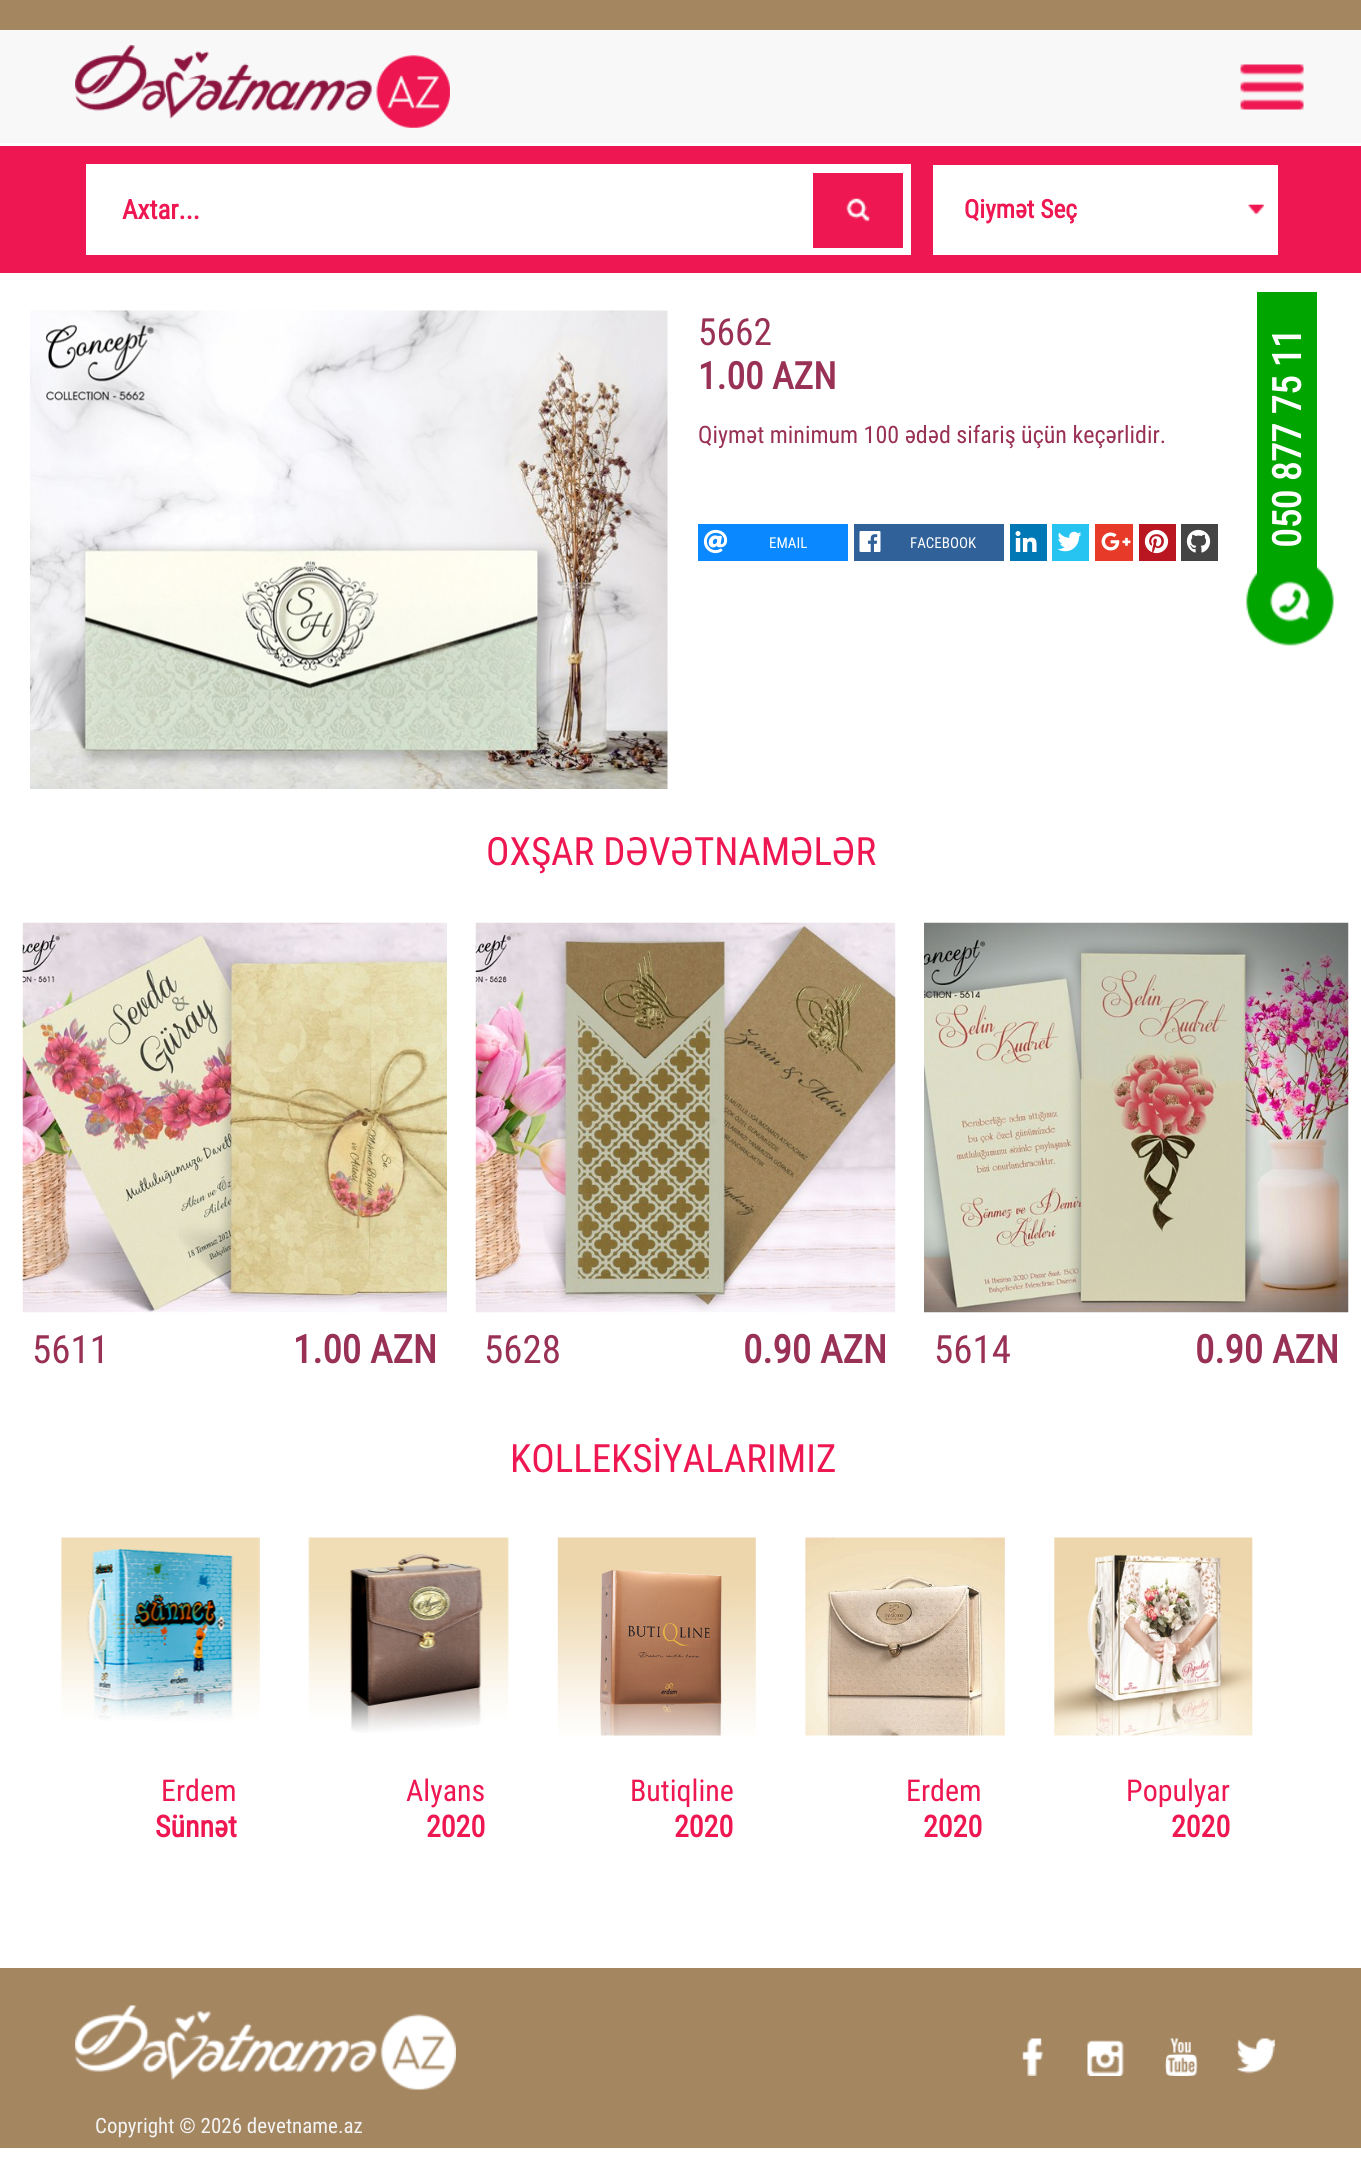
#include <cairo.h>
#include <math.h>
#include <stddef.h>

static cairo_t *c;
static void C(unsigned color){cairo_set_source_rgb(c, (color >> 16) / 255.0, (color >> 8 & 255) / 255.0, (color & 255) / 255.0);}
static void F(const char *family, double size, int italic, int bold){cairo_select_font_face(c, family, italic ? CAIRO_FONT_SLANT_ITALIC : CAIRO_FONT_SLANT_NORMAL,bold ? CAIRO_FONT_WEIGHT_BOLD : CAIRO_FONT_WEIGHT_NORMAL);cairo_set_font_size(c, size);}
static void T(double x, double y, const char *s){cairo_move_to(c, x, y);cairo_show_text(c, s);}
static void R(double x, double y, double w, double h){cairo_rectangle(c, x, y, w, h);cairo_fill(c);}
static void I(const char *path, double x, double y, double w, double h){cairo_surface_t *image = cairo_image_surface_create_from_png(path);cairo_save(c);cairo_set_source_surface(c, image, x, y);cairo_rectangle(c, x, y, w, h);cairo_fill(c);cairo_restore(c);cairo_surface_destroy(image);}
int main(void) {
cairo_surface_t *surface = cairo_image_surface_create(CAIRO_FORMAT_RGB24, 1361, 2182);
c = cairo_create(surface);
cairo_font_options_t *options = cairo_font_options_create();
cairo_font_options_set_hint_metrics(options, CAIRO_HINT_METRICS_OFF);
cairo_font_options_set_hint_style(options, CAIRO_HINT_STYLE_NONE);
cairo_set_font_options(c, options);
cairo_set_miter_limit(c, 4);
C(0xffffff);
cairo_paint(c);
C(0xee1751);
R(0,146,1361,127);
C(0xffffff);
R(86,164,825,91);
F("Roboto Condensed",27,0,1);
C(0xee1751);
T(122,219,"Axtar...");
R(813,173,90,75);
I("1.png",846,198,24,24);
C(0xffffff);
R(933,165,345,90);
I("2.png",1248,204,17,10);
F("Roboto Condensed",25.5,0,1);
C(0xee1751);
T(964,218,"Qiymət Seç");
I("3.png",30,310,638,479);
F("Roboto Condensed",37.5,0,0);
C(0x993055);
T(698,345,"5662");
F("Roboto Condensed",37.5,0,1);
T(698,389,"1.00 AZN");
F("Roboto Condensed",24,0,0);
T(698,443,"Qiymət minimum 100 ədəd sifariş üçün keçərlidir.");
C(0x0a88ff);
R(698,524,150,37);
I("4.png",703,529,25,25);
F("Roboto Condensed",15,0,0);
C(0xffffff);
T(769,548,"EMAIL");
C(0x306199);
R(854,524,150,37);
I("5.png",859,531,22,21);
C(0xffffff);
T(910,548,"FACEBOOK");
C(0x0078b5);
R(1010,524,37,37);
I("6.png",1015,531,22,21);
C(0x27c4f1);
R(1052,524,37,37);
I("7.png",1057,531,25,21);
C(0xe83a28);
R(1095,524,38,37);
I("8.png",1101,532,30,19);
C(0xb91621);
R(1139,524,37,37);
I("9.png",1144,529,25,25);
C(0x444444);
R(1181,524,37,37);
I("10.png",1186,529,25,24);
F("Roboto Condensed",39,0,0);
C(0xee1751);
T(486,865,"OXŞAR DƏVƏTNAMƏLƏR");
I("11.png",22,922,425,391);
C(0x993055);
T(32,1363,"5611");
F("Roboto Condensed",39,0,1);
T(293,1363,"1.00 AZN");
I("12.png",475,922,421,391);
F("Roboto Condensed",39,0,0);
T(484,1363,"5628");
F("Roboto Condensed",39,0,1);
T(743,1363,"0.90 AZN");
I("13.png",924,922,425,391);
F("Roboto Condensed",39,0,0);
T(934,1363,"5614");
F("Roboto Condensed",39,0,1);
T(1195,1363,"0.90 AZN");
F("Roboto Condensed",39,0,0);
C(0xee1751);
T(510,1472,"KOLLEKSİYALARIMIZ");
I("14.png",60,1537,200,184);
F("Roboto Condensed",30,0,0);
T(161,1801,"Erdem");
F("Roboto Condensed",30,0,1);
T(155,1837,"Sünnət");
I("15.png",308,1537,201,196);
F("Roboto Condensed",30,0,0);
T(406,1801,"Alyans");
F("Roboto Condensed",30,0,1);
T(426,1837,"2020");
I("16.png",557,1537,199,199);
F("Roboto Condensed",30,0,0);
T(630,1801,"Butiqline");
F("Roboto Condensed",30,0,1);
T(674,1837,"2020");
I("17.png",805,1537,200,199);
F("Roboto Condensed",30,0,0);
T(906,1801,"Erdem");
F("Roboto Condensed",30,0,1);
T(923,1837,"2020");
I("18.png",1054,1537,199,199);
F("Roboto Condensed",30,0,0);
T(1126,1801,"Populyar");
F("Roboto Condensed",30,0,1);
T(1171,1837,"2020");
C(0xa48661);
R(0,0,1361,30);
C(0xf8f8f8);
R(0,30,1361,113);
I("19.png",75,45,375,83);
I("20.png",1240,64,64,46);
C(0x00a500);
R(1257,292,60,285);
F("Roboto Condensed",39,0,1);
C(0xffffff);
cairo_save(c);
cairo_translate(c,1301,548);
cairo_rotate(c,-90 * M_PI / 180);
T(0,0,"050 877 75 11");
cairo_restore(c);
I("21.png",1246,566,88,80);
C(0xa48661);
R(0,1968,1361,180);
I("22.png",1022,2038,21,38);
I("23.png",1087,2040,37,36);
I("24.png",1164,2038,34,38);
I("25.png",1237,2038,38,36);
I("26.png",75,2005,381,85);
F("Roboto Condensed",21,0,0);
C(0xf4f4f4);
T(95,2133,"Copyright © 2026 devetname.az");
cairo_surface_write_to_png(surface, "o.png");
cairo_font_options_destroy(options);
cairo_destroy(c);
cairo_surface_destroy(surface);
return 0;
}
